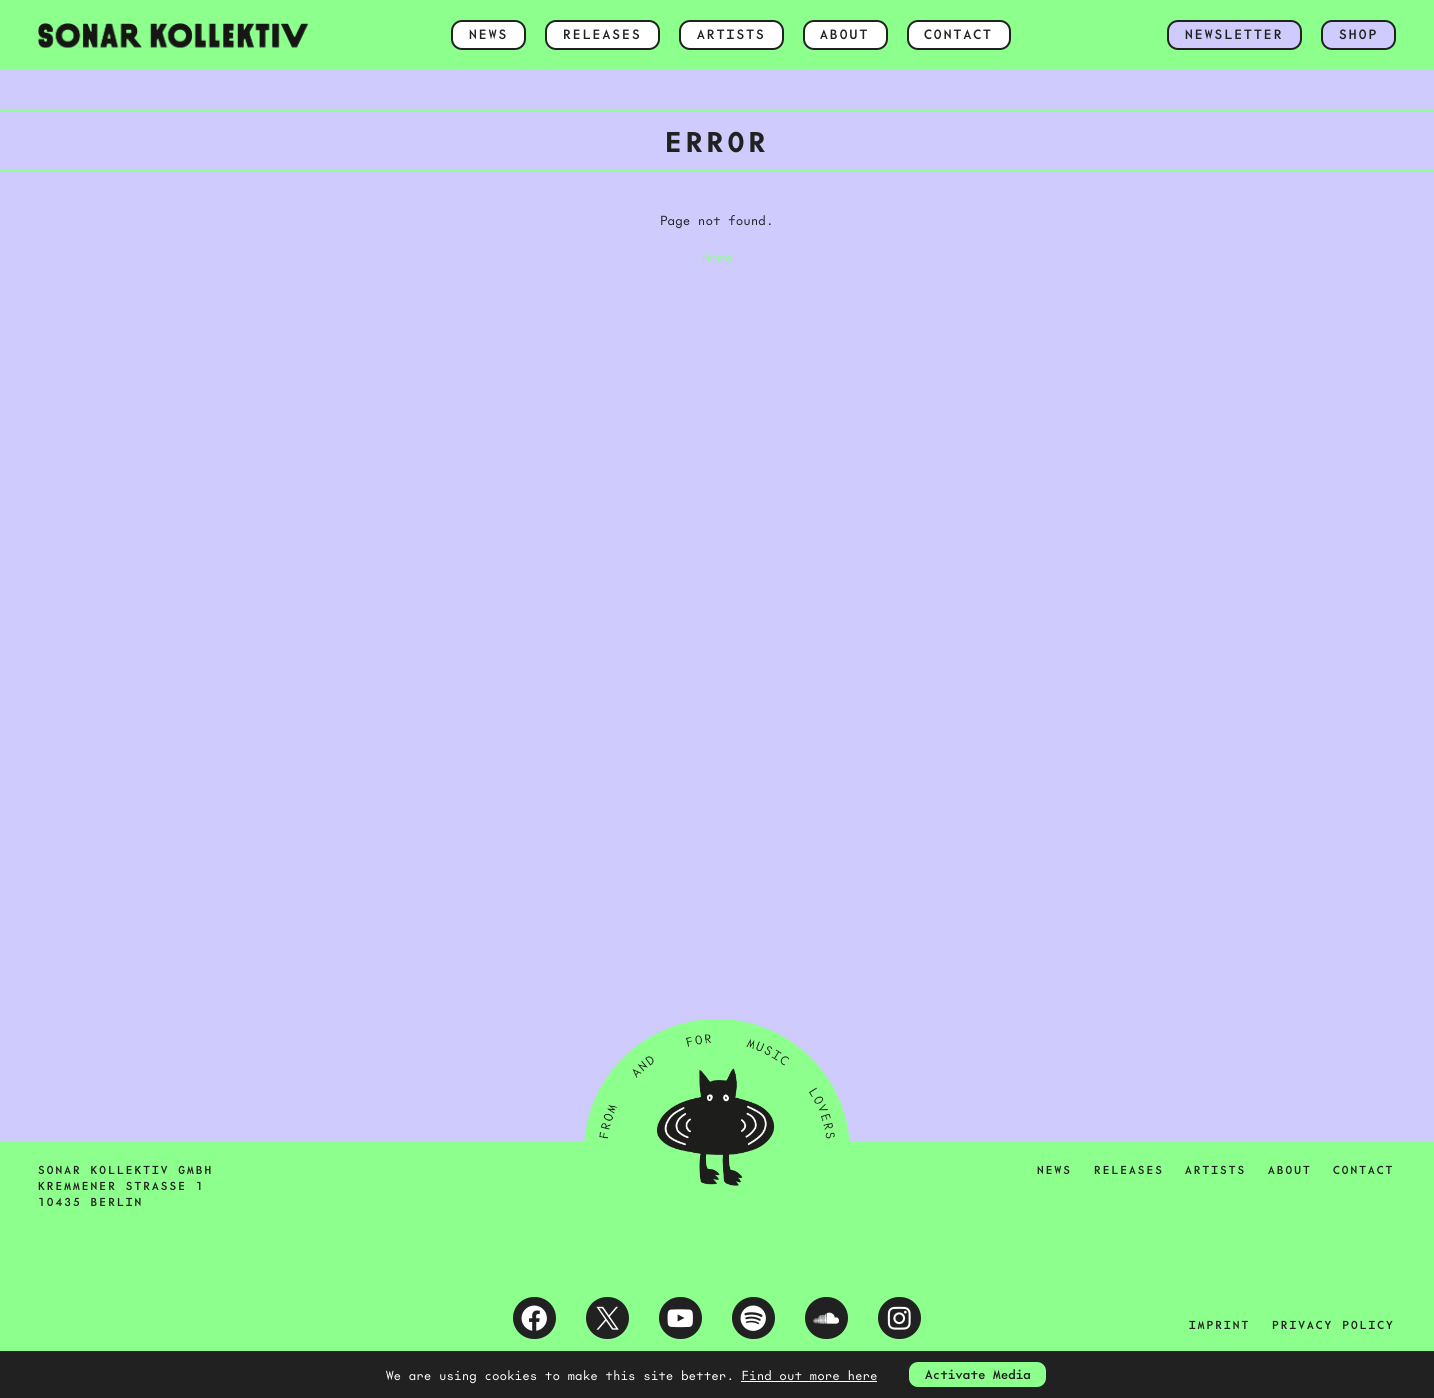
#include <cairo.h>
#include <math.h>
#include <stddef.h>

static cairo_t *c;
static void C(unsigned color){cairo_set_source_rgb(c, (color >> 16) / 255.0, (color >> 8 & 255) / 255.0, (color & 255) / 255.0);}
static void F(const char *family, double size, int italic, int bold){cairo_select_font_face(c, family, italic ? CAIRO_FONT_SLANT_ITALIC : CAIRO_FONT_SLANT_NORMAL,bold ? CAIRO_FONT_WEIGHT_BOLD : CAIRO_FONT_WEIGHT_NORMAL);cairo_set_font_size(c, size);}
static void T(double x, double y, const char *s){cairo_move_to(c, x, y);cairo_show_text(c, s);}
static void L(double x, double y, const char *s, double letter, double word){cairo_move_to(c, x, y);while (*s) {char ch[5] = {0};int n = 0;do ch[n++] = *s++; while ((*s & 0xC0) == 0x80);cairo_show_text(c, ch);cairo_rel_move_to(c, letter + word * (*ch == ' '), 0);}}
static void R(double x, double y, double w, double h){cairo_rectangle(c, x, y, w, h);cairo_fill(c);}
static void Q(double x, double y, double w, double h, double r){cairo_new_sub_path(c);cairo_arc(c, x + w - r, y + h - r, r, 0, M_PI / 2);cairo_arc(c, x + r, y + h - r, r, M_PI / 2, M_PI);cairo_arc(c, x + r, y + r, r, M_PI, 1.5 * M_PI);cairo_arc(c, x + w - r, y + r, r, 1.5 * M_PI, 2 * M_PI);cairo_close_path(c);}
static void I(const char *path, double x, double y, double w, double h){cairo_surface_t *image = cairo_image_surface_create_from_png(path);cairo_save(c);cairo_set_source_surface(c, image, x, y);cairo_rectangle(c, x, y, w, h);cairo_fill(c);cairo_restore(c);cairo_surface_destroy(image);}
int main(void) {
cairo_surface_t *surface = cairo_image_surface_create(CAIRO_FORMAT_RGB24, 1434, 1398);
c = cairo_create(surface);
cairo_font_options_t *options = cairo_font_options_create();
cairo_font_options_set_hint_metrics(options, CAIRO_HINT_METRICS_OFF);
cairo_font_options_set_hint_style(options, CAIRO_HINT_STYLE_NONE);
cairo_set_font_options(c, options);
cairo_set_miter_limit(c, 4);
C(0xcfcbfc);
cairo_paint(c);
C(0x8dff8d);
R(0,0,1434,70);
I("1.png",38,23,271,25);
C(0xffffff);
Q(452,21,73,28,10);
cairo_fill_preserve(c);
C(0x212121);
cairo_stroke(c);
F("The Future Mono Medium",12.5,0,0);
L(469,39,"NEWS",2.1,0);
C(0xffffff);
Q(546,21,113,28,10);
cairo_fill_preserve(c);
C(0x212121);
cairo_stroke(c);
L(563,39,"RELEASES",2.1,0);
C(0xffffff);
Q(680,21,103,28,10);
cairo_fill_preserve(c);
C(0x212121);
cairo_stroke(c);
L(697,39,"ARTISTS",2.1,0);
C(0xffffff);
Q(804,21,83,28,10);
cairo_fill_preserve(c);
C(0x212121);
cairo_stroke(c);
L(820,39,"ABOUT",2.1,0);
C(0xffffff);
Q(908,21,102,28,10);
cairo_fill_preserve(c);
C(0x212121);
cairo_stroke(c);
L(924,39,"CONTACT",2.1,0);
C(0xcfcbfc);
Q(1168,21,133,28,10);
cairo_fill_preserve(c);
C(0x212121);
cairo_stroke(c);
L(1185,39,"NEWSLETTER",2.1,0);
C(0xcfcbfc);
Q(1322,21,73,28,10);
cairo_fill_preserve(c);
C(0x212121);
cairo_stroke(c);
L(1339,39,"SHOP",2.1,0);
C(0x8dff8d);
R(0,110,1434,1);
R(0,170,1434,1);
F("The Future Mono",26.5,0,1);
C(0x212121);
L(665,152,"ERROR",4.5,0);
F("The Future Mono",12.2,0,0);
T(660,225,"Page not found.");
C(0x8dff8d);
T(702,262,"Home");
R(0,1142,1434,209);
cairo_new_path(c);
cairo_arc(c,717,1152,133,0,2 * M_PI);
cairo_fill(c);
I("2.png",599,1034,236,152);
F("The Future Mono Medium",10.75,0,0);
C(0x212121);
L(38,1174,"SONAR KOLLEKTIV GMBH",2.1,0);
L(38,1190,"KREMMENER STRASSE 1",2.1,0);
L(38,1206,"10435 BERLIN",2.1,0);
L(1037,1174,"NEWS",2.1,0);
L(1094,1174,"RELEASES",2.1,0);
L(1185,1174,"ARTISTS",2.1,0);
L(1268,1174,"ABOUT",2.1,0);
L(1333,1174,"CONTACT",2.1,0);
Q(513,1297,43,42,21);
cairo_fill(c);
I("3.png",521,1305,26,26);
Q(586,1297,43,42,21);
cairo_fill(c);
I("4.png",596,1306,23,24);
Q(659,1297,43,42,21);
cairo_fill(c);
I("5.png",667,1309,26,19);
Q(732,1297,43,42,21);
cairo_fill(c);
I("6.png",740,1305,26,26);
Q(805,1297,43,42,21);
cairo_fill(c);
I("7.png",813,1312,26,12);
Q(878,1297,43,42,21);
cairo_fill(c);
I("8.png",887,1306,24,24);
L(1189,1329,"IMPRINT",2.1,0);
L(1272,1329,"PRIVACY POLICY",2.1,0);
R(0,1351,1434,47);
F("The Future Mono",12.2,0,0);
C(0xffffff);
T(386,1380,"We are using cookies to make this site better. Find out more here");
R(741,1381,136,1);
C(0x8dff8d);
Q(908,1361,139,27,10);
cairo_fill_preserve(c);
C(0x212121);
cairo_stroke(c);
F("The Future Mono Medium",12.2,0,0);
T(925,1379,"Activate Media");
cairo_surface_write_to_png(surface, "o.png");
cairo_font_options_destroy(options);
cairo_destroy(c);
cairo_surface_destroy(surface);
return 0;
}
